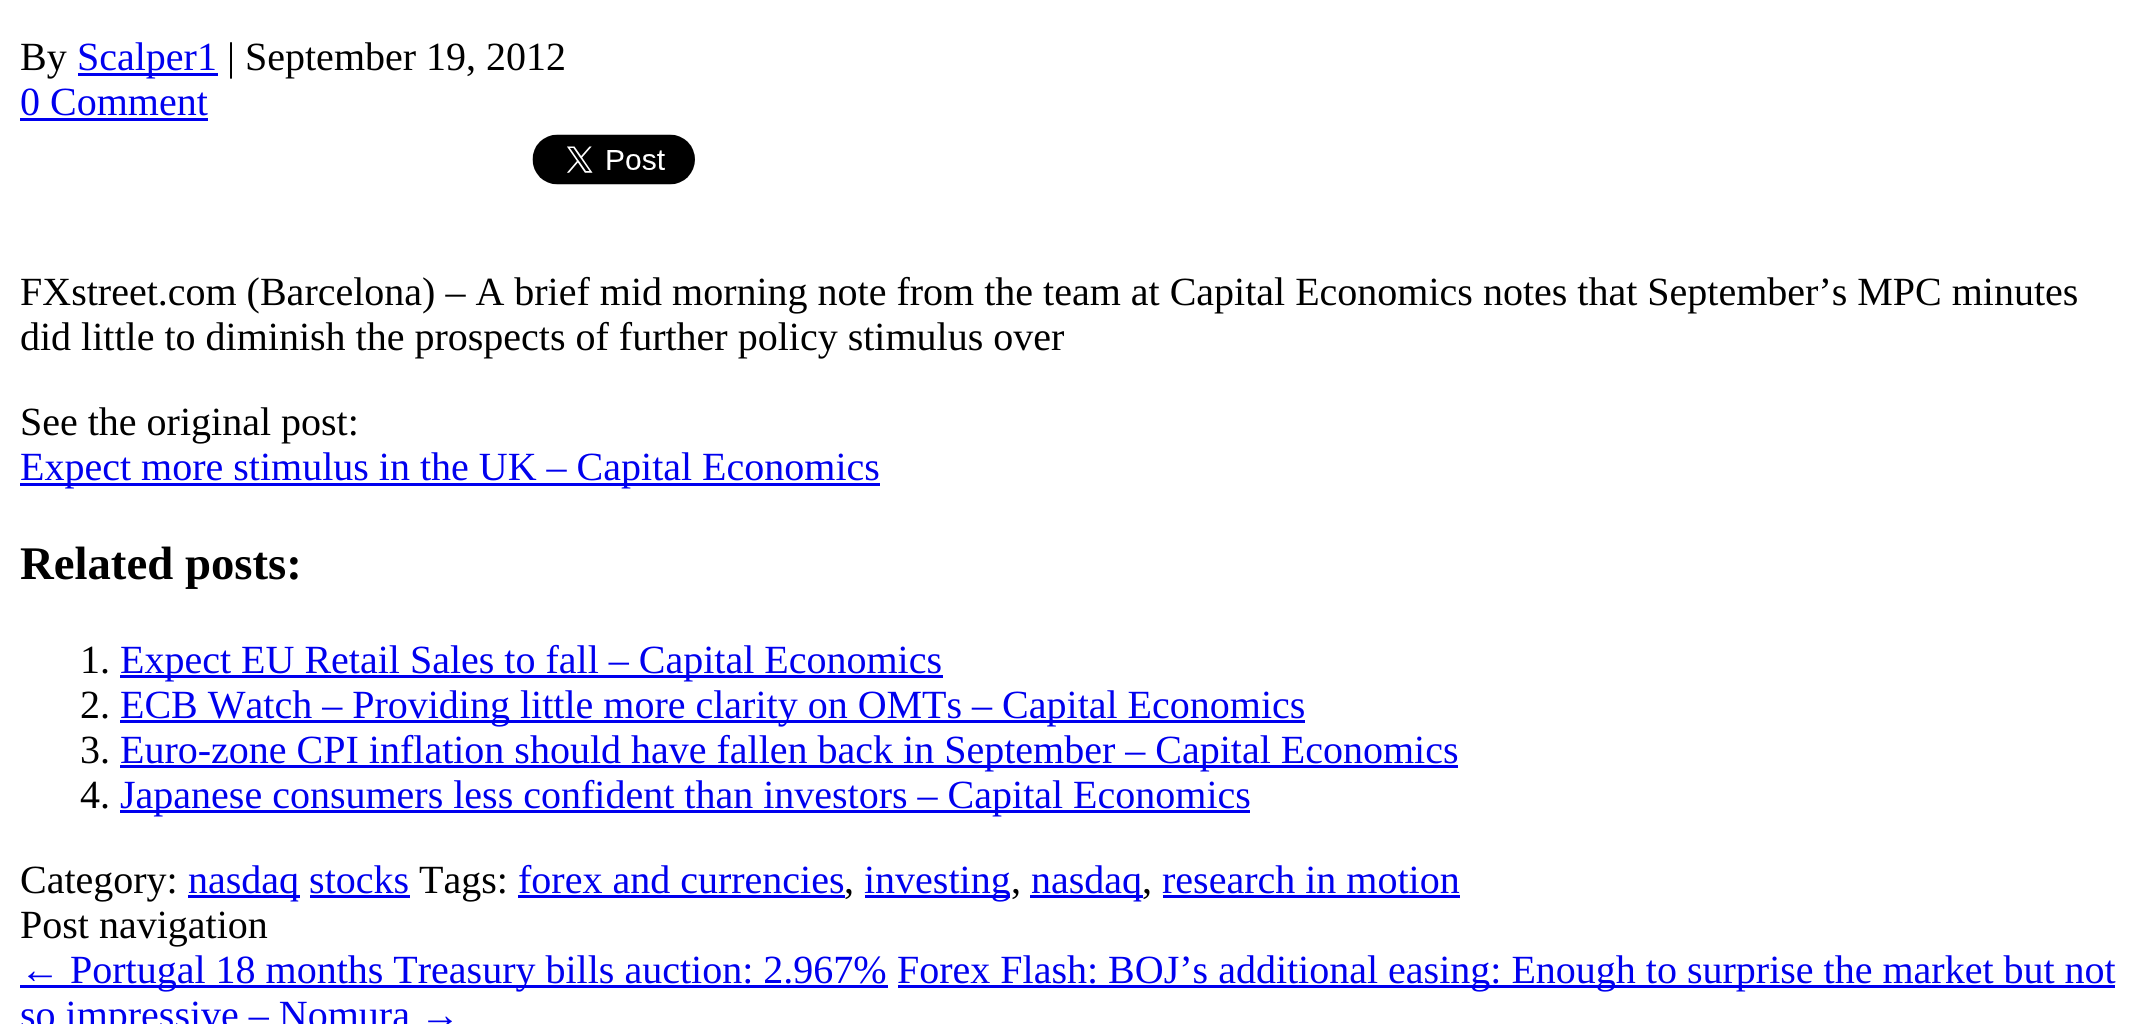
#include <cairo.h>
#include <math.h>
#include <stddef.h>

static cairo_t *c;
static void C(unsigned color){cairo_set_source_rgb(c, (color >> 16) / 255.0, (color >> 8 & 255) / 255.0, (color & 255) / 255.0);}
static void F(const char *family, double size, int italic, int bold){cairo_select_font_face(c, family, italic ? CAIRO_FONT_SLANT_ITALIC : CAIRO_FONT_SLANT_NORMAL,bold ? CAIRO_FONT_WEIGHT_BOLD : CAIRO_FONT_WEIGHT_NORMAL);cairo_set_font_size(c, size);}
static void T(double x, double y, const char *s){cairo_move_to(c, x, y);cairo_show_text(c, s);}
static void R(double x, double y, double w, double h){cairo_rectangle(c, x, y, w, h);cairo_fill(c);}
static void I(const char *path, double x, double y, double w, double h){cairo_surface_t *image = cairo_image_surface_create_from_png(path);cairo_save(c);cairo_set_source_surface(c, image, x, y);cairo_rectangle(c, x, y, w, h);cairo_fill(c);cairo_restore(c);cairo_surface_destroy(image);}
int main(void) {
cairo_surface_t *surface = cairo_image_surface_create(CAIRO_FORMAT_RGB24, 2147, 1024);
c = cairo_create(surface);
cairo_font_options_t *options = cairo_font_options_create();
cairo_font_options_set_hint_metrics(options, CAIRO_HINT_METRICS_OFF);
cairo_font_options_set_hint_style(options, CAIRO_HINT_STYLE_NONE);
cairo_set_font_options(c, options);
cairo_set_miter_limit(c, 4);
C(0xffffff);
cairo_paint(c);
F("Liberation Serif",40,0,0);
C(0x000000);
T(20,70,"By");
C(0x0000ee);
R(78,73,140,3);
T(77,70,"Scalper1");
C(0x000000);
T(227,70,"| September 19, 2012");
C(0x0000ee);
T(20,115,"0 Comment");
R(20,118,188,3);
I("1.png",532,134,163,51);
C(0x000000);
T(20,305,"FXstreet.com (Barcelona) – A brief mid morning note from the team at Capital Economics notes that September’s MPC minutes");
T(20,350,"did little to diminish the prospects of further policy stimulus over");
T(20,435,"See the original post:");
C(0x0000ee);
R(20,483,860,3);
T(20,480,"Expect more stimulus in the UK – Capital Economics");
F("Liberation Serif",46.75,0,1);
C(0x000000);
T(20,579,"Related posts:");
F("Liberation Serif",40,0,0);
T(80,673,"1.");
C(0x0000ee);
R(120,675,823,3);
T(120,673,"Expect EU Retail Sales to fall – Capital Economics");
C(0x000000);
T(80,718,"2.");
C(0x0000ee);
R(120,720,1185,3);
T(120,718,"ECB Watch – Providing little more clarity on OMTs – Capital Economics");
C(0x000000);
T(80,763,"3.");
C(0x0000ee);
R(120,765,1338,3);
T(120,763,"Euro-zone CPI inflation should have fallen back in September – Capital Economics");
C(0x000000);
T(80,808,"4.");
C(0x0000ee);
R(120,810,1130,3);
T(120,808,"Japanese consumers less confident than investors – Capital Economics");
C(0x000000);
T(20,893,"Category:");
C(0x0000ee);
R(188,895,112,3);
T(188,893,"nasdaq stocks");
R(310,895,100,3);
C(0x000000);
T(419,893,"Tags:");
C(0x0000ee);
T(518,893,"forex and currencies");
C(0x000000);
T(844,893,",");
C(0x0000ee);
R(518,895,327,3);
R(865,895,145,3);
T(864,893,"investing");
C(0x000000);
T(1011,893,",");
C(0x0000ee);
R(1030,895,113,3);
T(1031,893,"nasdaq");
C(0x000000);
T(1142,893,",");
C(0x0000ee);
R(1163,895,297,3);
T(1162,893,"research in motion");
C(0x000000);
T(20,938,"Post navigation");
C(0x0000ee);
R(20,985,868,3);
T(20,983,"← Portugal 18 months Treasury bills auction: 2.967%");
R(898,985,1217,3);
T(897,983,"Forex Flash: BOJ’s additional easing: Enough to surprise the market but not");
T(20,1028,"so impressive – Nomura →");
cairo_surface_write_to_png(surface, "o.png");
cairo_font_options_destroy(options);
cairo_destroy(c);
cairo_surface_destroy(surface);
return 0;
}
